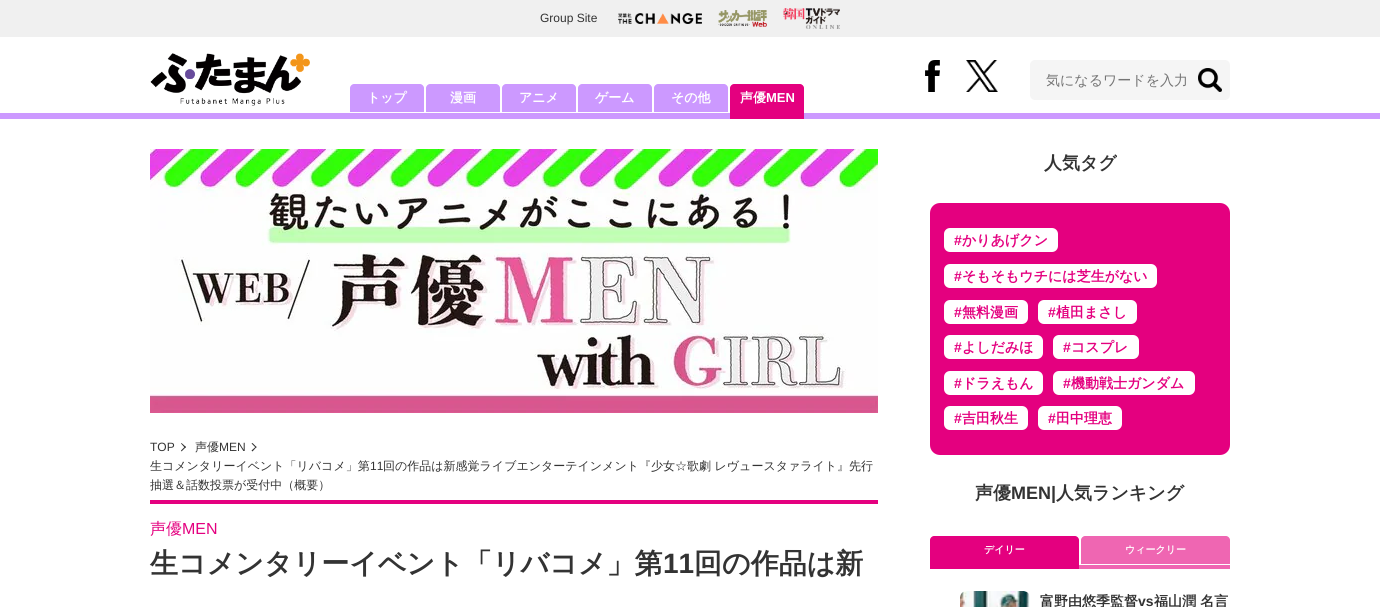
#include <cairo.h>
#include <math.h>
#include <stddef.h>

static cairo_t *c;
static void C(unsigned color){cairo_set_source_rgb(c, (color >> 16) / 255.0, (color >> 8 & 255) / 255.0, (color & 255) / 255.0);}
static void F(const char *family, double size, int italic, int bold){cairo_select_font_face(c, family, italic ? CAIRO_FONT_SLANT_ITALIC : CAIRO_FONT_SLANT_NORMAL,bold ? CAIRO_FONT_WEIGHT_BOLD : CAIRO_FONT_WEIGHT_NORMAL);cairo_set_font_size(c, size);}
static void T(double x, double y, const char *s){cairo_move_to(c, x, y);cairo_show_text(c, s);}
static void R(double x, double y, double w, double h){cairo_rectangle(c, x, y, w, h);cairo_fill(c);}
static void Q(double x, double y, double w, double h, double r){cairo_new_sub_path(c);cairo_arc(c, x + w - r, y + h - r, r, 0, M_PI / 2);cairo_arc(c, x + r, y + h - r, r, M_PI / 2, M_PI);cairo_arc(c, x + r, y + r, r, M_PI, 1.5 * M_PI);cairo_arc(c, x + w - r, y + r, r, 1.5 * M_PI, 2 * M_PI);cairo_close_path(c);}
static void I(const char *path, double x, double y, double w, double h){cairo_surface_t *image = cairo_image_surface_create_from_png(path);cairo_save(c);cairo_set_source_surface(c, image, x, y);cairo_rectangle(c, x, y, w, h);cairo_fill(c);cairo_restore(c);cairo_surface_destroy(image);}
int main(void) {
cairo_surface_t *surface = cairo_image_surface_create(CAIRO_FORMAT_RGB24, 1380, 607);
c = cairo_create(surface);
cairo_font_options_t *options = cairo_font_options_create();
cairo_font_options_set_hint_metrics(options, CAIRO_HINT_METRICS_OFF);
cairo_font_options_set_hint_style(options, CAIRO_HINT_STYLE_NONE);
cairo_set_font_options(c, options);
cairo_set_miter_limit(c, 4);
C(0xffffff);
cairo_paint(c);
C(0xf0f0f0);
R(0,0,1380,37);
F("Liberation Sans",12,0,0);
C(0x333333);
T(540,22,"Group Site");
I("1.png",618,13,84,11);
I("2.png",718,10,49,17);
I("3.png",783,8,57,21);
I("4.png",150,53,160,53);
I("5.png",925,60,15,32);
I("6.png",966,60,32,32);
C(0xf5f5f5);
Q(1030,60,200,40,5);
cairo_fill(c);
I("7.png",1198,68,24,24);
F("WenQuanYi Zen Hei Medium",14,0,0);
C(0x757575);
T(1046,85,"気になるワードを入力");
C(0xcc99ff);
cairo_new_path(c);
cairo_move_to(c,354,84);
cairo_line_to(c,420,84);
cairo_curve_to(c,422,84,424,86,424,88);
cairo_line_to(c,424,112);
cairo_line_to(c,350,112);
cairo_line_to(c,350,88);
cairo_curve_to(c,350,86,352,84,354,84);
cairo_close_path(c);
cairo_fill(c);
F("WenQuanYi Zen Hei",13,0,1);
C(0xffffff);
T(367,102,"トップ");
C(0xcc99ff);
cairo_new_path(c);
cairo_move_to(c,430,84);
cairo_line_to(c,496,84);
cairo_curve_to(c,498,84,500,86,500,88);
cairo_line_to(c,500,112);
cairo_line_to(c,426,112);
cairo_line_to(c,426,88);
cairo_curve_to(c,426,86,428,84,430,84);
cairo_close_path(c);
cairo_fill(c);
C(0xffffff);
T(450,102,"漫画");
C(0xcc99ff);
cairo_new_path(c);
cairo_move_to(c,506,84);
cairo_line_to(c,572,84);
cairo_curve_to(c,574,84,576,86,576,88);
cairo_line_to(c,576,112);
cairo_line_to(c,502,112);
cairo_line_to(c,502,88);
cairo_curve_to(c,502,86,504,84,506,84);
cairo_close_path(c);
cairo_fill(c);
C(0xffffff);
T(519,102,"アニメ");
C(0xcc99ff);
cairo_new_path(c);
cairo_move_to(c,582,84);
cairo_line_to(c,648,84);
cairo_curve_to(c,650,84,652,86,652,88);
cairo_line_to(c,652,112);
cairo_line_to(c,578,112);
cairo_line_to(c,578,88);
cairo_curve_to(c,578,86,580,84,582,84);
cairo_close_path(c);
cairo_fill(c);
C(0xffffff);
T(595,102,"ゲーム");
C(0xcc99ff);
cairo_new_path(c);
cairo_move_to(c,658,84);
cairo_line_to(c,724,84);
cairo_curve_to(c,726,84,728,86,728,88);
cairo_line_to(c,728,112);
cairo_line_to(c,654,112);
cairo_line_to(c,654,88);
cairo_curve_to(c,654,86,656,84,658,84);
cairo_close_path(c);
cairo_fill(c);
C(0xffffff);
T(671,102,"その他");
C(0xcc99ff);
R(0,113,1380,6);
C(0xe4007f);
cairo_new_path(c);
cairo_move_to(c,734,84);
cairo_line_to(c,800,84);
cairo_curve_to(c,802,84,804,86,804,88);
cairo_line_to(c,804,119);
cairo_line_to(c,730,119);
cairo_line_to(c,730,88);
cairo_curve_to(c,730,86,732,84,734,84);
cairo_close_path(c);
cairo_fill(c);
C(0xffffff);
T(740,102,"声優");
F("Liberation Sans",13,0,1);
T(766,102,"MEN");
I("8.png",150,149,728,264);
F("Liberation Sans",12,0,0);
C(0x333333);
T(150,451,"TOP");
cairo_new_path(c);
cairo_move_to(c,181.5,443);
cairo_line_to(c,186,447);
cairo_line_to(c,185,448);
cairo_line_to(c,181,443.5);
cairo_close_path(c);
cairo_fill(c);
cairo_new_path(c);
cairo_move_to(c,185,446.5);
cairo_line_to(c,186,447);
cairo_line_to(c,181.5,451.5);
cairo_line_to(c,181,450.5);
cairo_close_path(c);
cairo_fill(c);
F("WenQuanYi Zen Hei Medium",12,0,0);
T(195,451,"声優");
F("Liberation Sans",12,0,0);
T(219,451,"MEN");
cairo_new_path(c);
cairo_move_to(c,252.5,443);
cairo_line_to(c,256.5,447);
cairo_line_to(c,256,448);
cairo_line_to(c,251.5,443.5);
cairo_close_path(c);
cairo_fill(c);
cairo_new_path(c);
cairo_move_to(c,256,446.5);
cairo_line_to(c,256.5,447);
cairo_line_to(c,252.5,451.5);
cairo_line_to(c,251.5,450.5);
cairo_close_path(c);
cairo_fill(c);
F("WenQuanYi Zen Hei Medium",12,0,0);
T(150,470,"生コメンタリーイベント「リバコメ」第");
F("Liberation Sans",12,0,0);
T(370,470,"11");
F("WenQuanYi Zen Hei Medium",12,0,0);
T(383,470,"回の作品は新感覚ライブエンターテインメント『少女☆歌劇 レヴュースタァライト』先行");
T(150,489,"抽選＆話数投票が受付中（概要）");
C(0xe4007f);
R(150,500,728,4);
F("WenQuanYi Zen Hei Medium",16,0,0);
T(150,534,"声優");
F("Liberation Sans",16,0,0);
T(182,534,"MEN");
F("WenQuanYi Zen Hei",28,0,1);
C(0x333333);
T(150,573,"生コメンタリーイベント「リバコメ」第");
F("Liberation Sans",28,0,1);
T(663,573,"11");
F("WenQuanYi Zen Hei",28,0,1);
T(694,573,"回の作品は新");
F("WenQuanYi Zen Hei",18,0,1);
T(1044,169,"人気タグ");
C(0xe4007f);
Q(930,203,300,252,10);
cairo_fill(c);
C(0xffffff);
Q(944,228,114,24,6);
cairo_fill(c);
F("Liberation Sans",14,0,1);
C(0xe4007f);
T(954,245,"#");
F("WenQuanYi Zen Hei",14,0,1);
T(962,245,"かりあげクン");
C(0xffffff);
Q(944,264,213,24,6);
cairo_fill(c);
F("Liberation Sans",14,0,1);
C(0xe4007f);
T(954,281,"#");
F("WenQuanYi Zen Hei",14,0,1);
T(962,281,"そもそもウチには芝生がない");
C(0xffffff);
Q(944,300,84,24,6);
cairo_fill(c);
F("Liberation Sans",14,0,1);
C(0xe4007f);
T(954,317,"#");
F("WenQuanYi Zen Hei",14,0,1);
T(962,317,"無料漫画");
C(0xffffff);
Q(1038,300,99,24,6);
cairo_fill(c);
F("Liberation Sans",14,0,1);
C(0xe4007f);
T(1048,317,"#");
F("WenQuanYi Zen Hei",14,0,1);
T(1056,317,"植田まさし");
C(0xffffff);
Q(944,335,99,24,6);
cairo_fill(c);
F("Liberation Sans",14,0,1);
C(0xe4007f);
T(954,352,"#");
F("WenQuanYi Zen Hei",14,0,1);
T(962,352,"よしだみほ");
C(0xffffff);
Q(1053,335,86,24,6);
cairo_fill(c);
F("Liberation Sans",14,0,1);
C(0xe4007f);
T(1063,352,"#");
F("WenQuanYi Zen Hei",14,0,1);
T(1071,352,"コスプレ");
C(0xffffff);
Q(944,371,99,24,6);
cairo_fill(c);
F("Liberation Sans",14,0,1);
C(0xe4007f);
T(954,388,"#");
F("WenQuanYi Zen Hei",14,0,1);
T(962,388,"ドラえもん");
C(0xffffff);
Q(1053,371,142,24,6);
cairo_fill(c);
F("Liberation Sans",14,0,1);
C(0xe4007f);
T(1063,388,"#");
F("WenQuanYi Zen Hei",14,0,1);
T(1071,388,"機動戦士ガンダム");
C(0xffffff);
Q(944,406,84,24,6);
cairo_fill(c);
F("Liberation Sans",14,0,1);
C(0xe4007f);
T(954,423,"#");
F("WenQuanYi Zen Hei",14,0,1);
T(962,423,"吉田秋生");
C(0xffffff);
Q(1038,406,84,24,6);
cairo_fill(c);
F("Liberation Sans",14,0,1);
C(0xe4007f);
T(1048,423,"#");
F("WenQuanYi Zen Hei",14,0,1);
T(1056,423,"田中理恵");
F("WenQuanYi Zen Hei",18,0,1);
C(0x333333);
T(975,499,"声優");
F("Liberation Sans",18,0,1);
T(1011,499,"MEN|");
F("WenQuanYi Zen Hei",18,0,1);
T(1056,499,"人気ランキング");
C(0xe4007f);
cairo_new_path(c);
cairo_move_to(c,934,536);
cairo_line_to(c,1075,536);
cairo_curve_to(c,1077,536,1079,538,1079,540);
cairo_line_to(c,1079,569);
cairo_line_to(c,930,569);
cairo_line_to(c,930,540);
cairo_curve_to(c,930,538,932,536,934,536);
cairo_close_path(c);
cairo_fill(c);
F("WenQuanYi Zen Hei",10,0,1);
C(0xffffff);
T(984,553,"デイリー");
C(0xef66b2);
cairo_new_path(c);
cairo_move_to(c,1085,536);
cairo_line_to(c,1226,536);
cairo_curve_to(c,1228,536,1230,538,1230,540);
cairo_line_to(c,1230,564);
cairo_line_to(c,1081,564);
cairo_line_to(c,1081,540);
cairo_curve_to(c,1081,538,1083,536,1085,536);
cairo_close_path(c);
cairo_fill(c);
C(0xffffff);
T(1125,553,"ウィークリー");
C(0xef66b2);
R(1079,565,151,4);
I("9.png",960,591,70,16);
F("WenQuanYi Zen Hei",14,0,1);
C(0x333333);
T(1040,606,"富野由悠季監督");
F("Liberation Sans",14,0,1);
T(1138,606,"vs");
F("WenQuanYi Zen Hei",14,0,1);
T(1154,606,"福山潤 名言");
cairo_surface_write_to_png(surface, "o.png");
cairo_font_options_destroy(options);
cairo_destroy(c);
cairo_surface_destroy(surface);
return 0;
}
